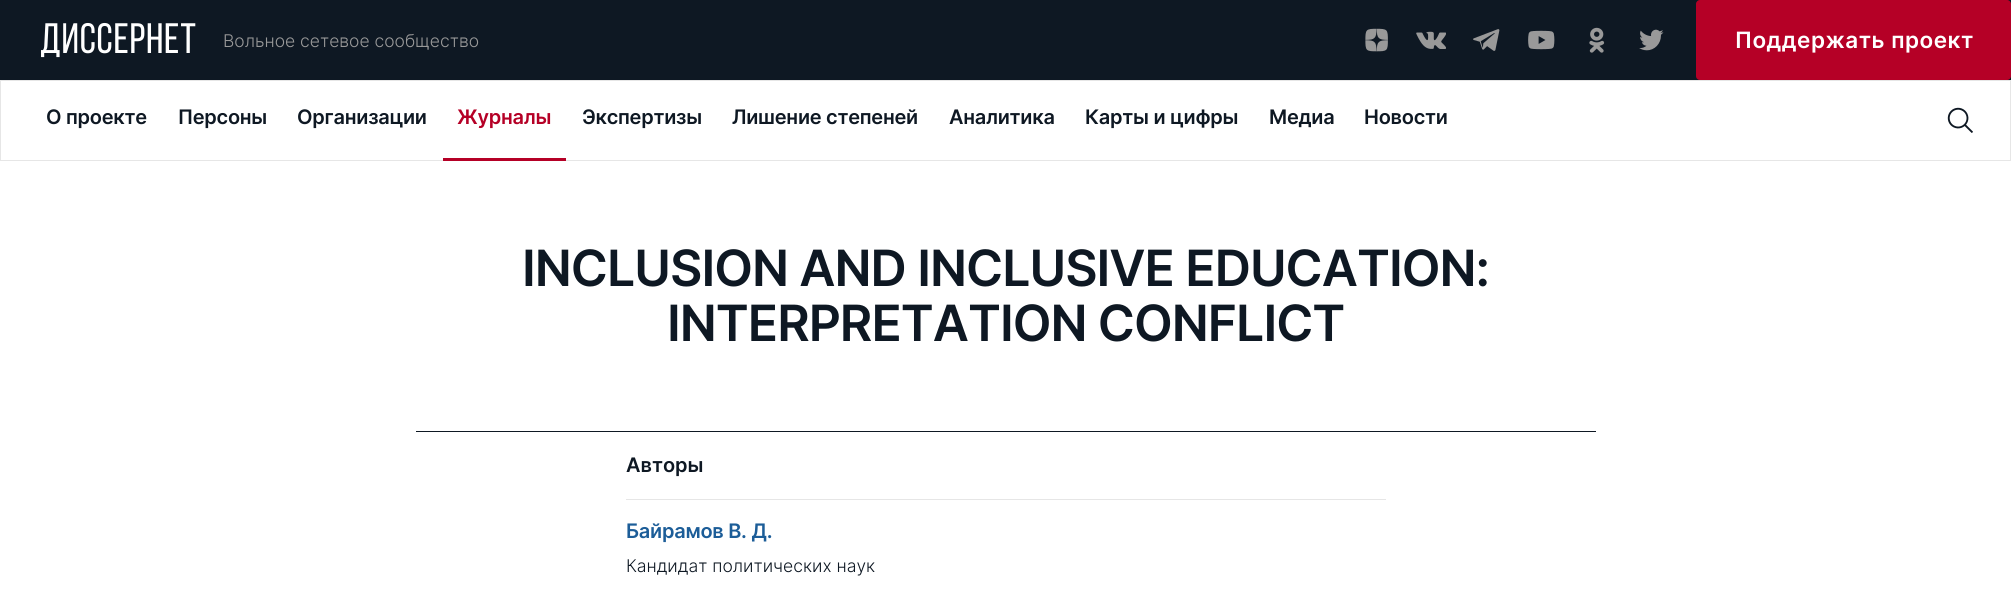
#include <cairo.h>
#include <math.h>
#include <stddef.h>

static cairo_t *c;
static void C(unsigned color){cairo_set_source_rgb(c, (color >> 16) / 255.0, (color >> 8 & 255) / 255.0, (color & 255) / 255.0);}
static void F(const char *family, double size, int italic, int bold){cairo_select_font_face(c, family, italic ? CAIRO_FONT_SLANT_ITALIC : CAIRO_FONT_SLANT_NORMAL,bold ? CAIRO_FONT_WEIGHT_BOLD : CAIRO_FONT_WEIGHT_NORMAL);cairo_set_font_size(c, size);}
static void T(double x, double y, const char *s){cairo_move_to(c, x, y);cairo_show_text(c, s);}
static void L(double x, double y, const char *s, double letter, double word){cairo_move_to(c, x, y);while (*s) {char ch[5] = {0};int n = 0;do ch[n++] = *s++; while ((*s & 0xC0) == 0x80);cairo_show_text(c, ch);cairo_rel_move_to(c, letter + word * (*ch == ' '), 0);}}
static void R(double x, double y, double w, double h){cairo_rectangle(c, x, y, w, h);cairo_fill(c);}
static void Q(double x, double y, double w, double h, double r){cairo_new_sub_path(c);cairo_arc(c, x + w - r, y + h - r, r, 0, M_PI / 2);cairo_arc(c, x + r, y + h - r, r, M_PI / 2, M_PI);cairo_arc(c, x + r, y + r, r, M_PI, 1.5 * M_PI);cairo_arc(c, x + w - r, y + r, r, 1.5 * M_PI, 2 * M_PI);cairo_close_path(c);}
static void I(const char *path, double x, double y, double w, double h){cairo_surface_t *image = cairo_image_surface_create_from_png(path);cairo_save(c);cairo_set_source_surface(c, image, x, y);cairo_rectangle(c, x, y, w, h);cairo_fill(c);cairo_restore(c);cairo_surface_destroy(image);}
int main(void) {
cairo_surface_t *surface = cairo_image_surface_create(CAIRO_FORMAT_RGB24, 2011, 613);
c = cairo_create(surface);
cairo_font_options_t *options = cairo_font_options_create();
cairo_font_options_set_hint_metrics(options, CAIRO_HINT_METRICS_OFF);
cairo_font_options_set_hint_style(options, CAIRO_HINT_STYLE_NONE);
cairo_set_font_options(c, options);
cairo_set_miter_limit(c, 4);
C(0xffffff);
cairo_paint(c);
C(0x0e1823);
R(0,0,2011,80);
F("Bebas Neue",42.5,0,0);
C(0xffffff);
L(40,53,"ДИССЕРНЕТ",.75,0);
F("Inter Light",17.5,0,0);
C(0x999999);
T(223,47,"Вольное сетевое сообщество");
I("1.png",1365,28,23,24);
I("2.png",1416,31,30,18);
I("3.png",1473,29,27,22);
I("4.png",1528,30,27,20);
I("5.png",1589,27,16,26);
I("6.png",1639,29,25,22);
C(0xb50026);
Q(1696,0,315,80,4);
cairo_fill(c);
F("Inter SemiBold",22.5,0,0);
C(0xffffff);
L(1735,48,"Поддержать проект",.5,0);
cairo_rectangle(c,.5,80.5,2010,80);
C(0xe6e6e6);
cairo_set_line_width(c,1);
cairo_stroke(c);
F("Inter SemiBold",20,0,0);
C(0x0e1823);
L(46,124,"О проекте",-.25,0);
L(178,124,"Персоны",-.25,0);
L(297,124,"Организации",-.25,0);
C(0xb50026);
L(457,124,"Журналы",-.25,0);
R(443,158,123,3);
C(0x0e1823);
L(582,124,"Экспертизы",-.25,0);
L(732,124,"Лишение степеней",-.25,0);
L(949,124,"Аналитика",-.25,0);
L(1085,124,"Карты и цифры",-.25,0);
L(1269,124,"Медиа",-.25,0);
L(1364,124,"Новости",-.25,0);
I("7.png",1947,107,26,26);
F("Inter SemiBold",50,0,0);
L(522,286,"INCLUSION AND INCLUSIVE EDUCATION:",-1,0);
L(667,341,"INTERPRETATION CONFLICT",-1,0);
R(416,431,1180,1);
C(0xe6e6e6);
R(626,499,760,1);
F("Inter SemiBold",20,0,0);
C(0x0e1823);
T(626,472,"Авторы");
C(0x1c5d98);
L(626,538,"Байрамов В. Д.",-.25,0);
F("Inter Light",17.5,0,0);
C(0x0e1823);
T(626,572,"Кандидат политических наук");
cairo_surface_write_to_png(surface, "o.png");
cairo_font_options_destroy(options);
cairo_destroy(c);
cairo_surface_destroy(surface);
return 0;
}
